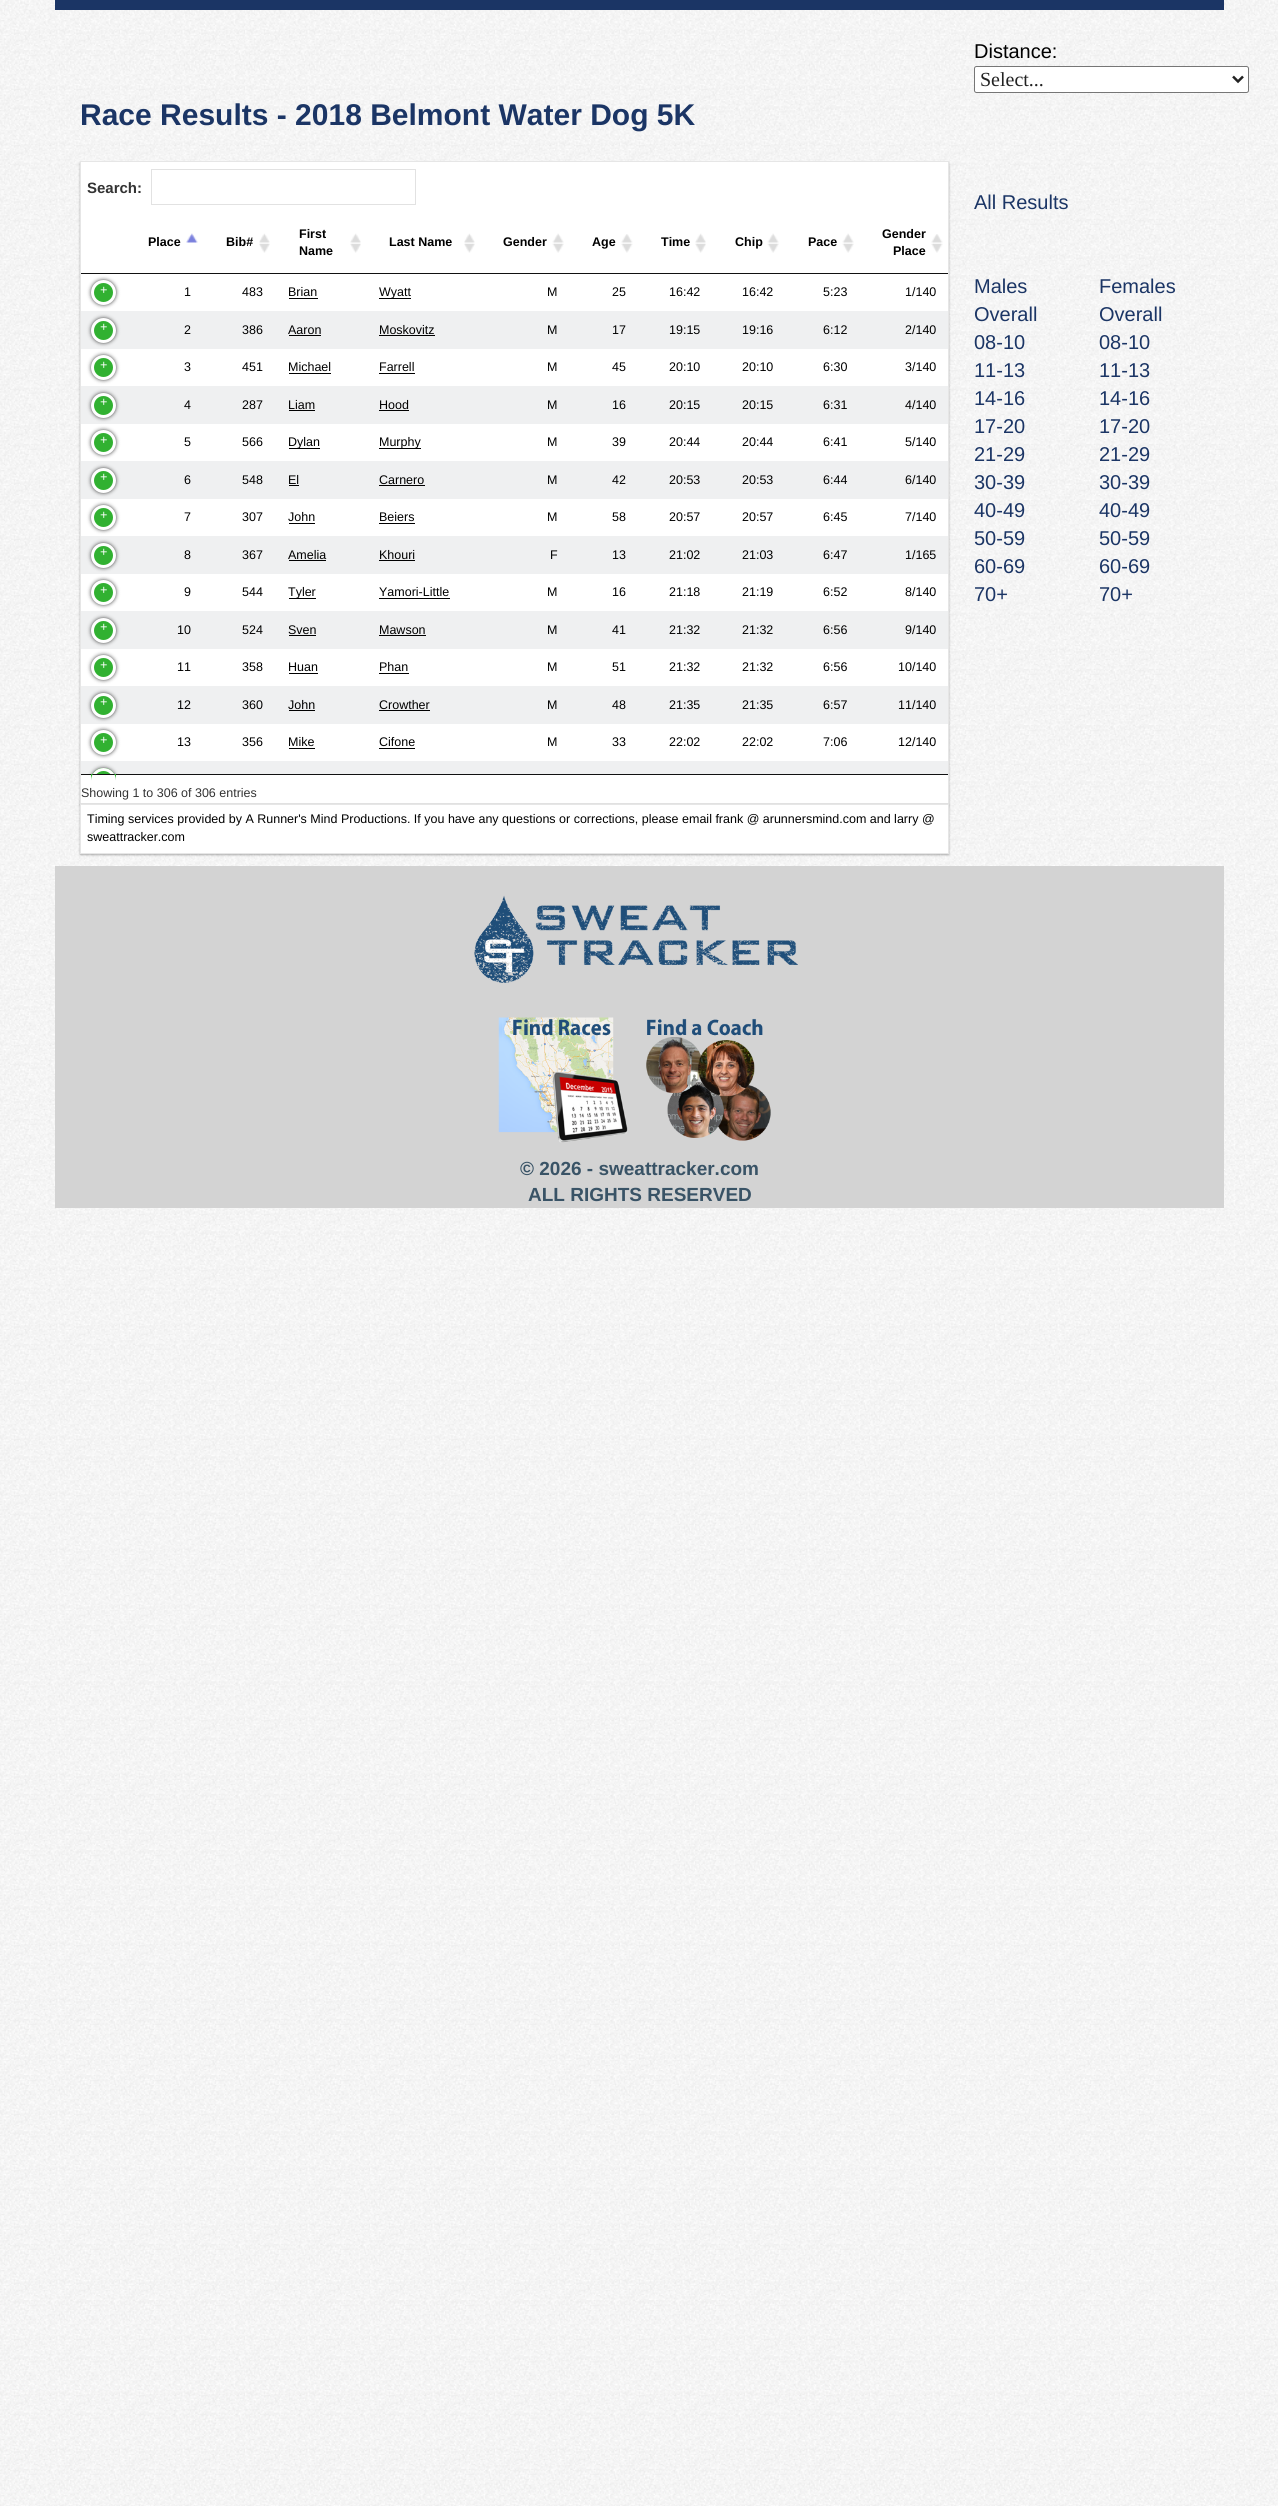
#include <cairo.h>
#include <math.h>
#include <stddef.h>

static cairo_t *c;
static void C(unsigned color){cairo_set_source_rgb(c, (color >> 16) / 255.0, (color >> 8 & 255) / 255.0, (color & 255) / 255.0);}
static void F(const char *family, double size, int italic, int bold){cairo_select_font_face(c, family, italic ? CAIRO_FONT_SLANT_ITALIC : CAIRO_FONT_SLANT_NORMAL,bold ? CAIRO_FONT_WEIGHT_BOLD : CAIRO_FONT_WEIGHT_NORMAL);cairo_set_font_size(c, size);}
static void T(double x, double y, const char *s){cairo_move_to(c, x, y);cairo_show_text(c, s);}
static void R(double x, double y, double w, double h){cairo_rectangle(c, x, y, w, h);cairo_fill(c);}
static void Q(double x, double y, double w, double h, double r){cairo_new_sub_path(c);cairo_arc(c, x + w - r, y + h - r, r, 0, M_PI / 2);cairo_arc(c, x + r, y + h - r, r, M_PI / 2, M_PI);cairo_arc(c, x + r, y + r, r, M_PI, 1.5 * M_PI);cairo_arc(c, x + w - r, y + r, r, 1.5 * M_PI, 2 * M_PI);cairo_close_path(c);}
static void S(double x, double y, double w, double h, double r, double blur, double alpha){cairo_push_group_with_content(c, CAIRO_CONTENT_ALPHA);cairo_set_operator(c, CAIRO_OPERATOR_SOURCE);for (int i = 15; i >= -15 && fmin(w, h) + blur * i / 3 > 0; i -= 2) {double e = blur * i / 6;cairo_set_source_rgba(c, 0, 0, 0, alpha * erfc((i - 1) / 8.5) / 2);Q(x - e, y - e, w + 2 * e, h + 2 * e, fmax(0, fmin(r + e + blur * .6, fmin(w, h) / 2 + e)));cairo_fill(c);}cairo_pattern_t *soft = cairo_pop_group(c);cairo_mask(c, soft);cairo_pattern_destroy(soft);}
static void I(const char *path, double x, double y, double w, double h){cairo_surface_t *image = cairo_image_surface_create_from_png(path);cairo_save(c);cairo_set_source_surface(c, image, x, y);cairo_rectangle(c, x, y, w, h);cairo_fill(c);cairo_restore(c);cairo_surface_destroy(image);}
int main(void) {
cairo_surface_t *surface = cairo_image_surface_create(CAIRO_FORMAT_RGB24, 1278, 2506);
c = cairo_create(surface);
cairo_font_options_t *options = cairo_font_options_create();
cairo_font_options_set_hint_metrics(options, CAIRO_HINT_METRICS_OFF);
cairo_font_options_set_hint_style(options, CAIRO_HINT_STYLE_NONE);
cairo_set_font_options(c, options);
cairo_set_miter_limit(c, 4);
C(0xffffff);
cairo_paint(c);
I("1.png",0,0,1278,2506);
C(0x1b3565);
R(55,0,1169,10);
F("Liberation Sans",20,0,0);
C(0x000000);
T(974,58,"Distance:");
C(0xffffff);
Q(974.5,66.5,274,26,2);
cairo_fill_preserve(c);
C(0x767676);
cairo_set_line_width(c,1);
cairo_stroke(c);
cairo_new_path(c);
cairo_move_to(c,1233,76.5);
cairo_line_to(c,1238,81.5);
cairo_line_to(c,1243,76.5);
C(0x222222);
cairo_set_line_width(c,2.5);
cairo_stroke(c);
F("Liberation Serif",20,0,0);
T(980,86,"Select...");
F("Liberation Sans",30,0,1);
C(0x1b3565);
T(80,125,"Race Results - 2018 Belmont Water Dog 5K");
C(0x000000);
S(80,163,869,642,0,1,.3);
C(0xffffff);
cairo_rectangle(c,80.5,161.5,868,642);
cairo_fill_preserve(c);
C(0xe6e6e6);
cairo_set_line_width(c,1);
cairo_stroke(c);
F("Liberation Sans",15,0,1);
C(0x333333);
T(87,193,"Search:");
cairo_rectangle(c,151.5,169.5,264,35);
C(0xe2e2e2);
cairo_stroke(c);
I("2.png",186,233,12,10);
F("Liberation Sans",12.5,0,1);
C(0x000000);
T(148,246,"Place");
I("3.png",259,233,11,20);
T(226,246,"Bib#");
I("4.png",350,233,11,20);
T(299,238,"First");
T(299,255,"Name");
I("3.png",464,233,11,20);
T(389,246,"Last Name");
I("5.png",552,233,12,20);
T(503,246,"Gender");
I("6.png",621,234,12,19);
T(592,246,"Age");
I("4.png",695,233,11,20);
T(661,246,"Time");
I("5.png",767,233,12,20);
T(735,246,"Chip");
I("5.png",842,233,12,20);
T(808,246,"Pace");
I("7.png",931,234,12,19);
T(882,238,"Gender");
T(893,255,"Place");
C(0x111111);
R(81,273,867,1);
R(81,774,867,1);
C(0xeff0f1);
R(81,311,867,38);
C(0x444444);
S(91,280,25,25,12.5,2,1);
C(0x31b131);
cairo_arc(c,103.5,292.5,11,0,2 * M_PI);
cairo_fill_preserve(c);
C(0xffffff);
cairo_set_line_width(c,3);
cairo_stroke(c);
F("Liberation Mono",12.5,0,0);
T(100,294,"+");
F("Liberation Sans",12.5,0,0);
C(0x000000);
T(184,296,"1");
T(242,296,"483");
T(288,296,"Brian");
R(289,298,29,1);
R(379,298,32,1);
T(379,296,"Wyatt");
T(547,296,"M");
T(612,296,"25");
T(669,296,"16:42");
T(742,296,"16:42");
T(823,296,"5:23");
T(905,296,"1/140");
C(0x444444);
S(91,318,25,25,12.5,2,1);
C(0x31b131);
cairo_arc(c,103.5,330.5,11,0,2 * M_PI);
cairo_fill_preserve(c);
C(0xffffff);
cairo_stroke(c);
F("Liberation Mono",12.5,0,0);
T(100,331,"+");
F("Liberation Sans",12.5,0,0);
C(0x000000);
T(184,334,"2");
T(242,334,"386");
T(288,334,"Aaron");
R(289,335,32,1);
T(379,334,"Moskovitz");
R(379,335,56,1);
T(547,334,"M");
T(612,334,"17");
T(669,334,"19:15");
T(742,334,"19:16");
T(823,334,"6:12");
T(905,334,"2/140");
C(0xeff0f1);
R(81,386,867,38);
C(0x444444);
S(91,355,25,25,12.5,2,1);
C(0x31b131);
cairo_arc(c,103.5,367.5,11,0,2 * M_PI);
cairo_fill_preserve(c);
C(0xffffff);
cairo_stroke(c);
F("Liberation Mono",12.5,0,0);
T(100,369,"+");
F("Liberation Sans",12.5,0,0);
C(0x000000);
T(184,371,"3");
T(242,371,"451");
T(288,371,"Michael");
R(289,373,42,1);
T(379,371,"Farrell");
R(379,373,36,1);
T(547,371,"M");
T(612,371,"45");
T(669,371,"20:10");
T(742,371,"20:10");
T(823,371,"6:30");
T(905,371,"3/140");
C(0x444444);
S(91,393,25,25,12.5,2,1);
C(0x31b131);
cairo_arc(c,103.5,405.5,11,0,2 * M_PI);
cairo_fill_preserve(c);
C(0xffffff);
cairo_stroke(c);
F("Liberation Mono",12.5,0,0);
T(100,406,"+");
F("Liberation Sans",12.5,0,0);
C(0x000000);
T(184,409,"4");
T(242,409,"287");
T(288,409,"Liam");
R(289,410,26,1);
T(379,409,"Hood");
R(379,410,30,1);
T(547,409,"M");
T(612,409,"16");
T(669,409,"20:15");
T(742,409,"20:15");
T(823,409,"6:31");
T(905,409,"4/140");
C(0xeff0f1);
R(81,461,867,38);
C(0x444444);
S(91,430,25,25,12.5,2,1);
C(0x31b131);
cairo_arc(c,103.5,442.5,11,0,2 * M_PI);
cairo_fill_preserve(c);
C(0xffffff);
cairo_stroke(c);
F("Liberation Mono",12.5,0,0);
T(100,444,"+");
F("Liberation Sans",12.5,0,0);
C(0x000000);
T(184,446,"5");
T(242,446,"566");
R(289,448,31,1);
T(288,446,"Dylan");
R(379,448,42,1);
T(379,446,"Murphy");
T(547,446,"M");
T(612,446,"39");
T(669,446,"20:44");
T(742,446,"20:44");
T(823,446,"6:41");
T(905,446,"5/140");
C(0x444444);
S(91,468,25,25,12.5,2,1);
C(0x31b131);
cairo_arc(c,103.5,480.5,11,0,2 * M_PI);
cairo_fill_preserve(c);
C(0xffffff);
cairo_stroke(c);
F("Liberation Mono",12.5,0,0);
T(100,481,"+");
F("Liberation Sans",12.5,0,0);
C(0x000000);
T(184,484,"6");
T(242,484,"548");
T(288,484,"El");
R(289,485,10,1);
T(379,484,"Carnero");
R(379,485,46,1);
T(547,484,"M");
T(612,484,"42");
T(669,484,"20:53");
T(742,484,"20:53");
T(823,484,"6:44");
T(905,484,"6/140");
C(0xeff0f1);
R(81,536,867,38);
C(0x444444);
S(91,505,25,25,12.5,2,1);
C(0x31b131);
cairo_arc(c,103.5,517.5,11,0,2 * M_PI);
cairo_fill_preserve(c);
C(0xffffff);
cairo_stroke(c);
F("Liberation Mono",12.5,0,0);
T(100,519,"+");
F("Liberation Sans",12.5,0,0);
C(0x000000);
T(184,521,"7");
T(242,521,"307");
T(288,521,"John");
R(289,523,26,1);
T(379,521,"Beiers");
R(379,523,36,1);
T(547,521,"M");
T(612,521,"58");
T(669,521,"20:57");
T(742,521,"20:57");
T(823,521,"6:45");
T(905,521,"7/140");
C(0x444444);
S(91,543,25,25,12.5,2,1);
C(0x31b131);
cairo_arc(c,103.5,555.5,11,0,2 * M_PI);
cairo_fill_preserve(c);
C(0xffffff);
cairo_stroke(c);
F("Liberation Mono",12.5,0,0);
T(100,556,"+");
F("Liberation Sans",12.5,0,0);
C(0x000000);
T(184,559,"8");
T(242,559,"367");
T(288,559,"Amelia");
R(289,560,37,1);
T(379,559,"Khouri");
R(379,560,36,1);
T(550,559,"F");
T(612,559,"13");
T(669,559,"21:02");
T(742,559,"21:03");
T(823,559,"6:47");
T(905,559,"1/165");
C(0xeff0f1);
R(81,611,867,38);
C(0x444444);
S(91,580,25,25,12.5,2,1);
C(0x31b131);
cairo_arc(c,103.5,592.5,11,0,2 * M_PI);
cairo_fill_preserve(c);
C(0xffffff);
cairo_stroke(c);
F("Liberation Mono",12.5,0,0);
T(100,594,"+");
F("Liberation Sans",12.5,0,0);
C(0x000000);
T(184,596,"9");
T(242,596,"544");
R(289,598,27,1);
T(288,596,"Tyler");
T(379,596,"Yamori-Little");
R(379,598,71,1);
T(547,596,"M");
T(612,596,"16");
T(669,596,"21:18");
T(742,596,"21:19");
T(823,596,"6:52");
T(905,596,"8/140");
C(0x444444);
S(91,618,25,25,12.5,2,1);
C(0x31b131);
cairo_arc(c,103.5,630.5,11,0,2 * M_PI);
cairo_fill_preserve(c);
C(0xffffff);
cairo_stroke(c);
F("Liberation Mono",12.5,0,0);
T(100,631,"+");
F("Liberation Sans",12.5,0,0);
C(0x000000);
T(177,634,"10");
T(242,634,"524");
T(288,634,"Sven");
R(289,635,27,1);
T(379,634,"Mawson");
R(379,635,47,1);
T(547,634,"M");
T(612,634,"41");
T(669,634,"21:32");
T(742,634,"21:32");
T(823,634,"6:56");
T(905,634,"9/140");
C(0xeff0f1);
R(81,686,867,38);
C(0x444444);
S(91,655,25,25,12.5,2,1);
C(0x31b131);
cairo_arc(c,103.5,667.5,11,0,2 * M_PI);
cairo_fill_preserve(c);
C(0xffffff);
cairo_stroke(c);
F("Liberation Mono",12.5,0,0);
T(100,669,"+");
F("Liberation Sans",12.5,0,0);
C(0x000000);
T(177,671,"11");
T(242,671,"358");
T(288,671,"Huan");
R(289,673,29,1);
T(379,671,"Phan");
R(379,673,30,1);
T(547,671,"M");
T(612,671,"51");
T(669,671,"21:32");
T(742,671,"21:32");
T(823,671,"6:56");
T(898,671,"10/140");
C(0x444444);
S(91,693,25,25,12.5,2,1);
C(0x31b131);
cairo_arc(c,103.5,705.5,11,0,2 * M_PI);
cairo_fill_preserve(c);
C(0xffffff);
cairo_stroke(c);
F("Liberation Mono",12.5,0,0);
T(100,706,"+");
F("Liberation Sans",12.5,0,0);
C(0x000000);
T(177,709,"12");
T(242,709,"360");
T(288,709,"John");
R(289,710,26,1);
T(379,709,"Crowther");
R(379,710,51,1);
T(547,709,"M");
T(612,709,"48");
T(669,709,"21:35");
T(742,709,"21:35");
T(823,709,"6:57");
T(898,709,"11/140");
C(0xeff0f1);
R(81,761,867,13);
C(0x444444);
S(91,730,25,25,12.5,2,1);
C(0x31b131);
cairo_arc(c,103.5,742.5,11,0,2 * M_PI);
cairo_fill_preserve(c);
C(0xffffff);
cairo_stroke(c);
F("Liberation Mono",12.5,0,0);
T(100,744,"+");
F("Liberation Sans",12.5,0,0);
C(0x000000);
T(177,746,"13");
T(242,746,"356");
T(288,746,"Mike");
R(289,748,26,1);
T(379,746,"Cifone");
R(379,748,36,1);
T(547,746,"M");
T(612,746,"33");
T(669,746,"22:02");
T(742,746,"22:02");
T(823,746,"7:06");
T(898,746,"12/140");
cairo_save(c);
cairo_rectangle(c,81,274,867,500);
cairo_clip(c);
C(0x444444);
S(91,768,25,25,12.5,2,1);
cairo_restore(c);
C(0x31b131);
cairo_new_path(c);
cairo_move_to(c,103.5,768);
cairo_curve_to(c,110.5,768,116,773.5,116,780.5);
cairo_line_to(c,116,774);
cairo_line_to(c,91,774);
cairo_line_to(c,91,780.5);
cairo_curve_to(c,91,773.5,96.5,768,103.5,768);
cairo_close_path(c);
cairo_fill(c);
C(0x333333);
T(81,797,"Showing 1 to 306 of 306 entries");
cairo_save(c);
cairo_rectangle(c,81,274,867,500);
cairo_clip(c);
cairo_arc(c,103.5,780.5,11,0,2 * M_PI);
C(0xffffff);
cairo_stroke(c);
cairo_restore(c);
C(0x000000);
S(80,805,869,50,0,1,.3);
C(0xffffff);
cairo_rectangle(c,80.5,804.5,868,49);
cairo_fill_preserve(c);
C(0xe6e6e6);
cairo_set_line_width(c,1);
cairo_stroke(c);
C(0x000000);
T(87,823,"Timing services provided by A Runner's Mind Productions. If you have any questions or corrections, please email frank @ arunnersmind.com and larry @");
T(87,841,"sweattracker.com");
F("Liberation Sans",20,0,0);
C(0x1b3565);
T(974,209,"All Results");
T(974,293,"Males");
T(974,321,"Overall");
T(974,349,"08-10");
T(974,377,"11-13");
T(974,405,"14-16");
T(974,433,"17-20");
T(974,461,"21-29");
T(974,489,"30-39");
T(974,517,"40-49");
T(974,545,"50-59");
T(974,573,"60-69");
T(974,601,"70+");
T(1099,293,"Females");
T(1099,321,"Overall");
T(1099,349,"08-10");
T(1099,377,"11-13");
T(1099,405,"14-16");
T(1099,433,"17-20");
T(1099,461,"21-29");
T(1099,489,"30-39");
T(1099,517,"40-49");
T(1099,545,"50-59");
T(1099,573,"60-69");
T(1099,601,"70+");
C(0xd3d3d3);
R(55,866,1169,342);
I("8.png",474,895,324,88);
I("9.png",498,1017,130,126);
I("10.png",646,1018,125,123);
F("Liberation Sans",19,0,1);
C(0x395366);
T(520,1175,"© 2026 - sweattracker.com");
T(528,1201,"ALL RIGHTS RESERVED");
cairo_surface_write_to_png(surface, "o.png");
cairo_font_options_destroy(options);
cairo_destroy(c);
cairo_surface_destroy(surface);
return 0;
}
